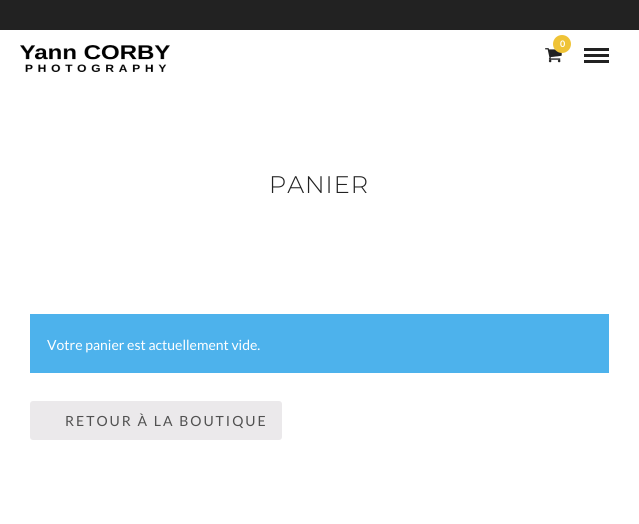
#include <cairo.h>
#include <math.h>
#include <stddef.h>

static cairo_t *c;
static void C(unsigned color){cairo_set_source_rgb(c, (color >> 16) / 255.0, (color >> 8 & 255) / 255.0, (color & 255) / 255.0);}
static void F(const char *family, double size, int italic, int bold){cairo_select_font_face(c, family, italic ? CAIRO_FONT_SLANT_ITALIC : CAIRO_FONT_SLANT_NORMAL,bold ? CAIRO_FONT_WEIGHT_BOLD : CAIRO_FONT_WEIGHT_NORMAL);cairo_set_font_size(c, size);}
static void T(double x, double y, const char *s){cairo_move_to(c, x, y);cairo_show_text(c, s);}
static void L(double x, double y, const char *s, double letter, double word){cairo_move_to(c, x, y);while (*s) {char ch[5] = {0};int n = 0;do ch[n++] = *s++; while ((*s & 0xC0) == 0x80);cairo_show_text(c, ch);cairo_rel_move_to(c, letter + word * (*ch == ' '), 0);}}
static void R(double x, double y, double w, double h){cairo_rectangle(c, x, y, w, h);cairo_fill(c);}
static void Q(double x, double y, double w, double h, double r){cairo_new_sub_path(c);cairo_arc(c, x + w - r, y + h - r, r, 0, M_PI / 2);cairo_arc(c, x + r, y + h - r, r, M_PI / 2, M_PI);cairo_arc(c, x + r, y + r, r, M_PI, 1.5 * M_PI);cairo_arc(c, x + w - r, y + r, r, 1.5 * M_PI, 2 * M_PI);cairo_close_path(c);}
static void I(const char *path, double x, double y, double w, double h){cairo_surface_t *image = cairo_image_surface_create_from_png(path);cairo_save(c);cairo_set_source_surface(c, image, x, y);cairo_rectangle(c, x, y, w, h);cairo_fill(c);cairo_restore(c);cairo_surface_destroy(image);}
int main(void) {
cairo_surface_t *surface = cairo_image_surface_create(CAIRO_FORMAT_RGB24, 639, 524);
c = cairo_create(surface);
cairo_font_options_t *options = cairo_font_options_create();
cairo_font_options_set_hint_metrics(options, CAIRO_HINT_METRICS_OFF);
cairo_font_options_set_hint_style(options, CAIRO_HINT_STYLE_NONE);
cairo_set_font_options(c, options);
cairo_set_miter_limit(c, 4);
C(0xffffff);
cairo_paint(c);
C(0x222222);
R(0,0,639,30);
I("1.png",545,48,17,15);
C(0xefc337);
cairo_arc(c,562,44,9,0,2 * M_PI);
cairo_fill(c);
F("Lato",9,0,1);
C(0xffffff);
T(560,47,"0");
C(0x222222);
R(584,48,25,3);
R(584,54,25,3);
R(584,60,25,3);
I("2.png",20,45,150,27);
F("Montserrat Thin",24,0,0);
L(269,193,"PANIER",1,0);
C(0x4db2ec);
R(30,314,579,59);
F("Lato",14,0,0);
C(0xffffff);
T(47,350,"Votre panier est actuellement vide.");
C(0xebe9eb);
Q(30,401,252,39,3);
cairo_fill(c);
C(0x515151);
L(65,426,"RETOUR À LA BOUTIQUE",2,0);
cairo_surface_write_to_png(surface, "o.png");
cairo_font_options_destroy(options);
cairo_destroy(c);
cairo_surface_destroy(surface);
return 0;
}
